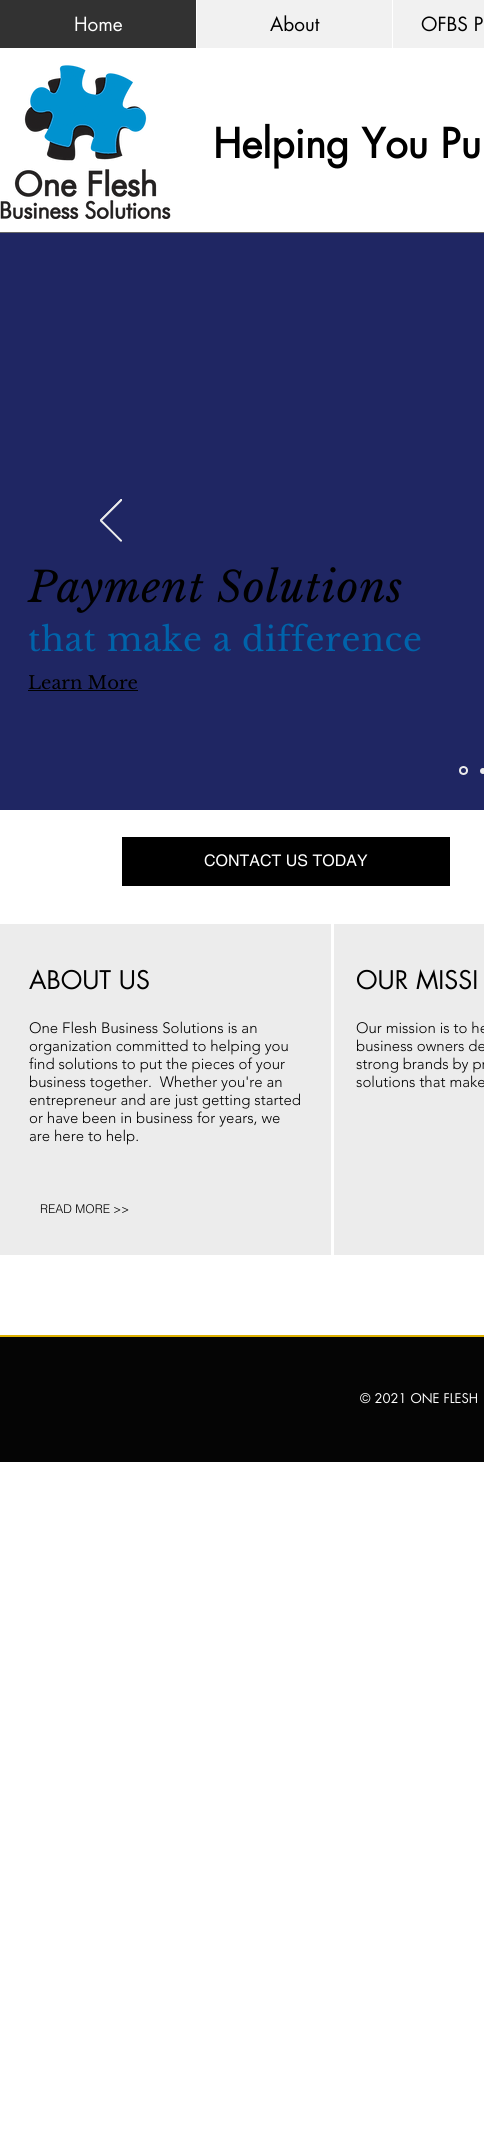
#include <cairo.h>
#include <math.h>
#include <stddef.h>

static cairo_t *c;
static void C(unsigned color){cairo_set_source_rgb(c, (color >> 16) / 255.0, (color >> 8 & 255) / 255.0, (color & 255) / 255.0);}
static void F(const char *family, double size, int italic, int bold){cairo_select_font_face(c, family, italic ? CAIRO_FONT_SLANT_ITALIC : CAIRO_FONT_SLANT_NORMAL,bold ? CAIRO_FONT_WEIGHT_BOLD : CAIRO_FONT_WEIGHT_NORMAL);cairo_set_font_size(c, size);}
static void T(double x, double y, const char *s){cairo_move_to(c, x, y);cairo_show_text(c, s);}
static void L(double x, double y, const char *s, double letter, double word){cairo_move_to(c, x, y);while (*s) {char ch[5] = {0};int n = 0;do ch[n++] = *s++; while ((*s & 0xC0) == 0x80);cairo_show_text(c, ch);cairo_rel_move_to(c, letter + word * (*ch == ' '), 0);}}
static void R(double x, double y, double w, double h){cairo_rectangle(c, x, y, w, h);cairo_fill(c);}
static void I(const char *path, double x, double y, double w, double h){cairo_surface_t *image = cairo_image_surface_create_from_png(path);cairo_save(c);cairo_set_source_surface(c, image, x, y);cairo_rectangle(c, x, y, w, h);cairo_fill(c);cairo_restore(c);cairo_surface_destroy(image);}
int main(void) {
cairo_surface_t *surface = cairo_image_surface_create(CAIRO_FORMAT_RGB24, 484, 2153);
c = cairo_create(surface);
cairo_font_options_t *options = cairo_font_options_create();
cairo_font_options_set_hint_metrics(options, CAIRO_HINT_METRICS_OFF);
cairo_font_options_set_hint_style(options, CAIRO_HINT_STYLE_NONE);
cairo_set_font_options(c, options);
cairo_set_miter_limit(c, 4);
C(0xffffff);
cairo_paint(c);
C(0xf1f1f1);
R(197,0,287,48);
C(0x323232);
R(0,0,196,48);
F("futura",19,0,0);
C(0xffffff);
T(74,31,"Home");
C(0x000000);
T(270,31,"About");
C(0xffffff);
R(392,0,1,48);
C(0x000000);
T(421,31,"OFBS P");
I("1.png",0,65,171,154);
F("futura",40,0,1);
T(213,158,"Helping You Pu");
C(0x666666);
R(0,232,484,1);
C(0x1f2663);
R(0,233,484,577);
C(0xececec);
cairo_new_path(c);
cairo_move_to(c,121,542);
cairo_line_to(c,100,520);
cairo_line_to(c,121,499);
cairo_line_to(c,122,500);
cairo_line_to(c,101,520);
cairo_line_to(c,122,541);
cairo_close_path(c);
cairo_fill(c);
cairo_save(c);
cairo_rectangle(c,100,499,22,42);
cairo_clip(c);
cairo_new_path(c);
cairo_move_to(c,121.5,541.5);
cairo_line_to(c,100,520.5);
cairo_line_to(c,121.5,499);
cairo_line_to(c,122,500);
cairo_line_to(c,101.5,520.5);
cairo_line_to(c,122,541);
cairo_close_path(c);
cairo_set_line_width(c,1);
cairo_stroke(c);
cairo_restore(c);
F("Libre Baskerville",42,1,0);
C(0x000000);
L(28,602,"Payment Solutions",.8,0);
F("Libre Baskerville",33,0,0);
C(0x0063aa);
L(28,651,"that make a difference",.7,0);
F("Libre Baskerville",18,0,0);
C(0x000000);
T(28,689,"Learn More");
R(28,690,110,1);
cairo_new_path(c);
cairo_arc(c,463.5,770.5,3.5,0,2 * M_PI);
C(0xececec);
cairo_stroke(c);
cairo_arc(c,483,771,3,0,2 * M_PI);
cairo_fill(c);
C(0x000000);
R(122,837,328,49);
F("helvetica",16,0,0);
C(0xffffff);
T(204,866,"CONTACT US TODAY");
C(0xececec);
R(0,924,331,331);
F("futura",25,0,0);
C(0x000000);
T(29,989,"ABOUT US");
F("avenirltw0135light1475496 Light",15,0,0);
T(29,1033,"One Flesh Business Solutions is an");
T(29,1051,"organization committed to helping you");
T(29,1069,"find solutions to put the pieces of your");
T(29,1087,"business together.  Whether you're an");
T(29,1105,"entrepreneur and are just getting started");
T(29,1123,"or have been in business for years, we");
T(29,1141,"are here to help.");
F("helvetica Light",12,0,0);
T(40,1213,"READ MORE >>");
C(0xececec);
R(334,924,150,331);
F("futura",25,0,0);
C(0x000000);
T(356,989,"OUR MISSI");
F("avenirltw0135light1475496 Light",15,0,0);
T(356,1033,"Our mission is to he");
T(356,1051,"business owners de");
T(356,1069,"strong brands by pr");
T(356,1087,"solutions that make");
C(0x050505);
R(0,1337,484,125);
C(0xdeb100);
R(0,1335,484,2);
F("futura",13,0,0);
C(0xffffff);
T(360,1403,"© 2021 ONE FLESH");
cairo_surface_write_to_png(surface, "o.png");
cairo_font_options_destroy(options);
cairo_destroy(c);
cairo_surface_destroy(surface);
return 0;
}
